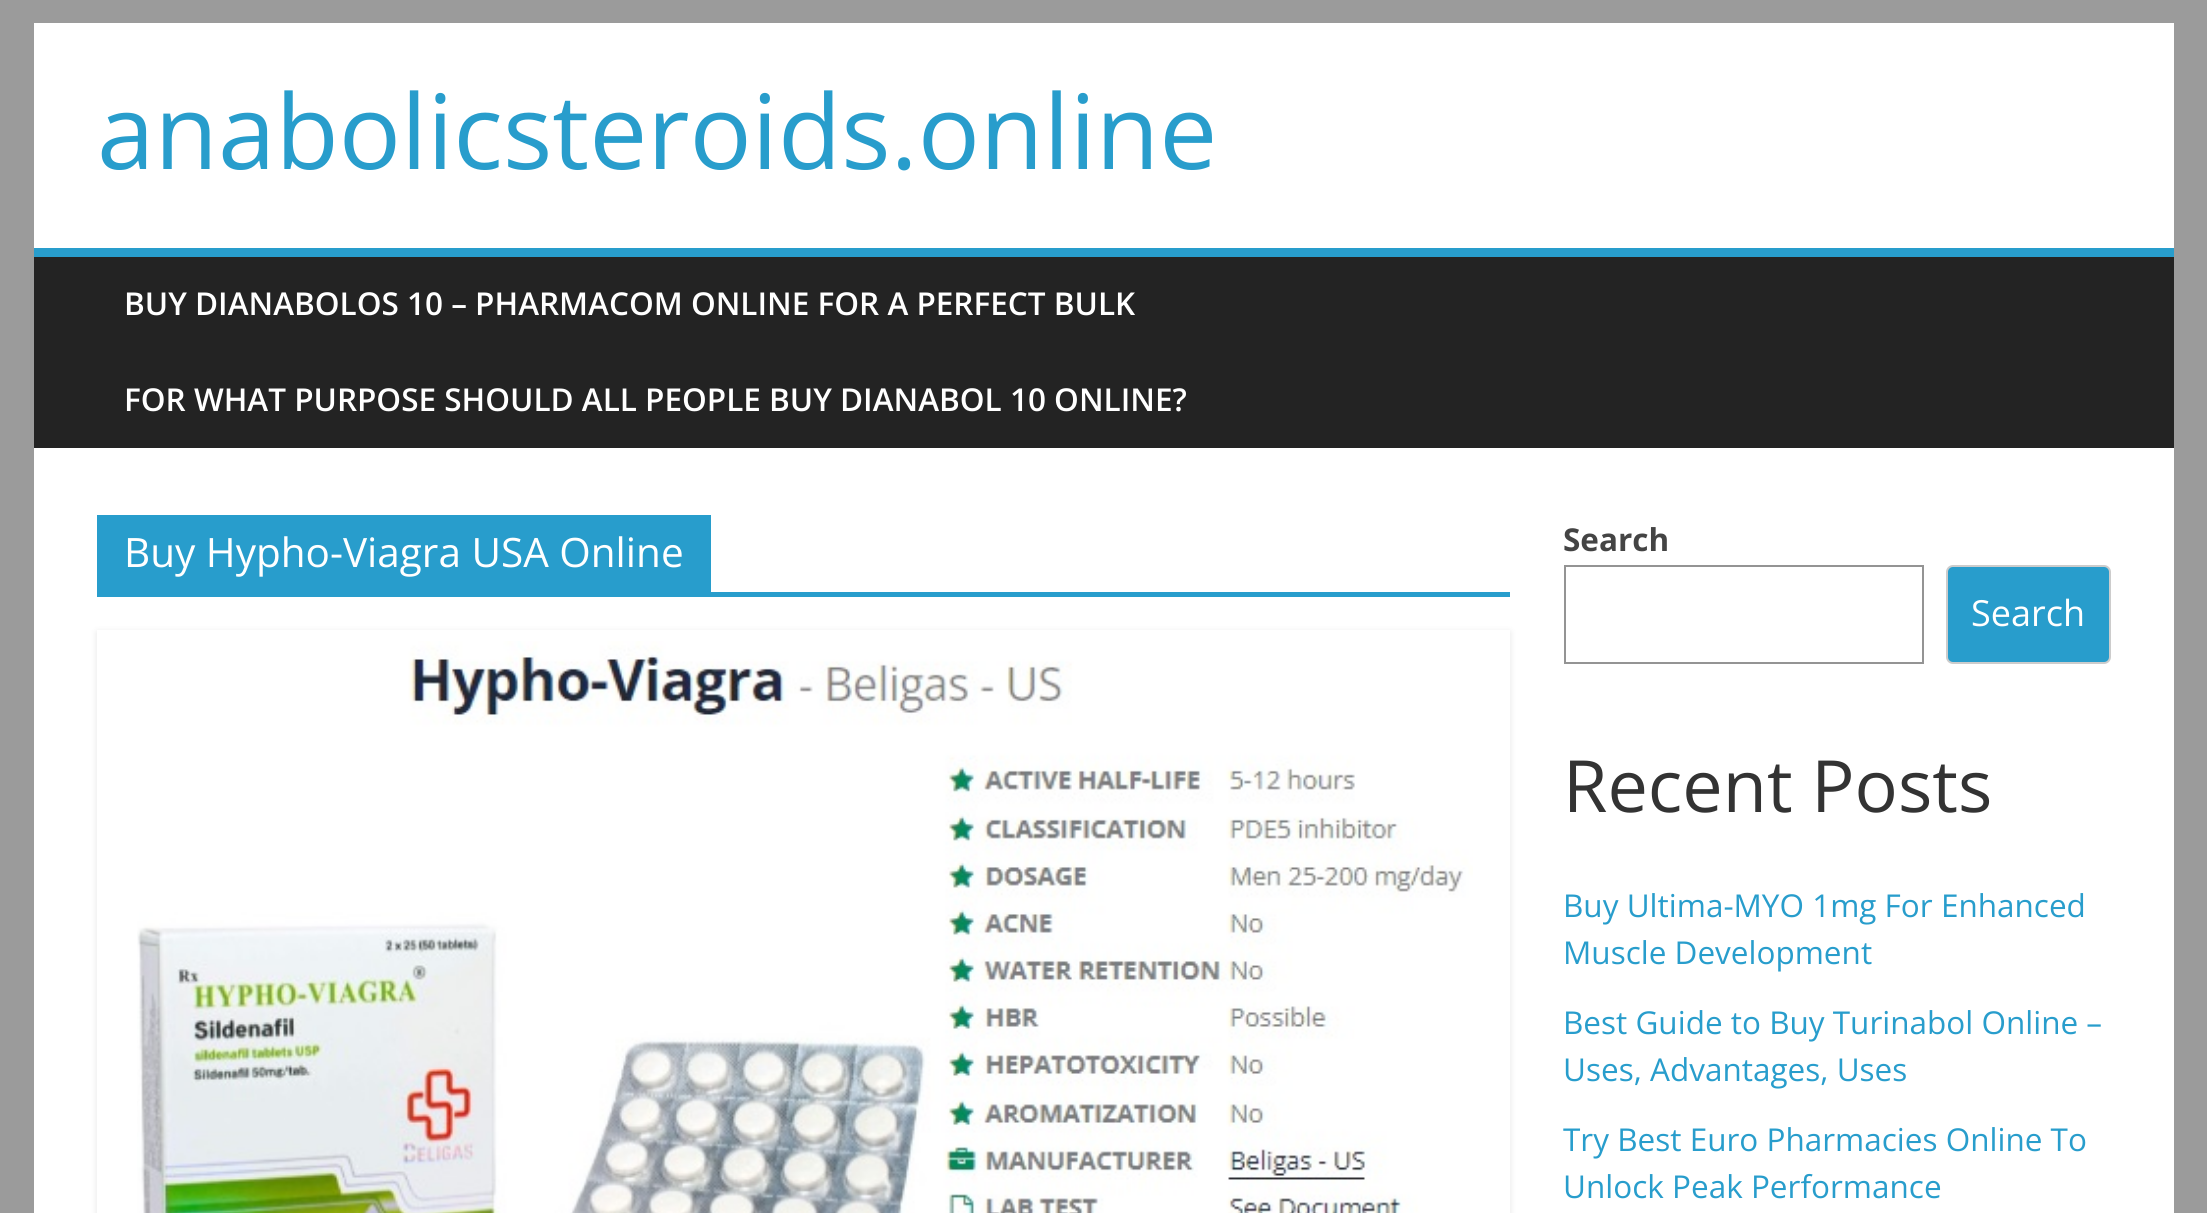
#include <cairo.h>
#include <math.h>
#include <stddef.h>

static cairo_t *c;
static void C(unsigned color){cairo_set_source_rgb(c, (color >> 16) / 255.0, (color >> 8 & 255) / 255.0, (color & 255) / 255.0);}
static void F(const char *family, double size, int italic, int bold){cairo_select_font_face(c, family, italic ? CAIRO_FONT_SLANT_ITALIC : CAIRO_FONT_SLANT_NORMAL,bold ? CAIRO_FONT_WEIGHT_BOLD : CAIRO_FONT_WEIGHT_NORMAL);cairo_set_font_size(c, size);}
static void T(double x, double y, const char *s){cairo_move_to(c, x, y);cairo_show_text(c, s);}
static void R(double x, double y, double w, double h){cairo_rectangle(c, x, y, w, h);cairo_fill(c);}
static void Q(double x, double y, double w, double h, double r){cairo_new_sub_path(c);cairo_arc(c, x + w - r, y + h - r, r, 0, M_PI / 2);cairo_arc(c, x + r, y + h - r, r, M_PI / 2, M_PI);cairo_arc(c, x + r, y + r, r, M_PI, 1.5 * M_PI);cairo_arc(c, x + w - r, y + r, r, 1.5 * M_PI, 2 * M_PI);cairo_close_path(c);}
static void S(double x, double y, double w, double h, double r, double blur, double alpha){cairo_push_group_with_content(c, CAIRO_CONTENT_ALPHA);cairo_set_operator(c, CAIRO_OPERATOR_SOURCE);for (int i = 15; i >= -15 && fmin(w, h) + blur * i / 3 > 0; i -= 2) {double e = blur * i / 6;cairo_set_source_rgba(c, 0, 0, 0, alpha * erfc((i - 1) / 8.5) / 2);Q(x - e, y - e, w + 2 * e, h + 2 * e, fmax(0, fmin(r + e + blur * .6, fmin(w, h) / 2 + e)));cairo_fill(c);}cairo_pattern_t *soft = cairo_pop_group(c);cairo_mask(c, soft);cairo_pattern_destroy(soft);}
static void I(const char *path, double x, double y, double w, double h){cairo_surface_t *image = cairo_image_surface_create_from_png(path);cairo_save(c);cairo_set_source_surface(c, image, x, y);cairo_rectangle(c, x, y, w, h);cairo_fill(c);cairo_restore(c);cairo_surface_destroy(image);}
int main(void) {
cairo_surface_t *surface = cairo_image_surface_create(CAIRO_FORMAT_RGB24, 2207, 1213);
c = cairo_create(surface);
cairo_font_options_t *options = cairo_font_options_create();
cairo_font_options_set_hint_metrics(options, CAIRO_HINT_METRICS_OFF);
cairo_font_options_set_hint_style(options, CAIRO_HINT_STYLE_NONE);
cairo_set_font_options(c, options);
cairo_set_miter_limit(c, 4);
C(0x9b9b9b);
cairo_paint(c);
C(0xffffff);
R(34,23,2140,225);
F("Open Sans",103.5,0,0);
C(0x289dcc);
T(97,169,"anabolicsteroids.online");
C(0x232323);
R(34,257,2140,191);
C(0x289dcc);
R(34,248,2140,9);
F("Open Sans SemiBold",31.5,0,0);
C(0xffffff);
T(124,315,"BUY DIANABOLOS 10 – PHARMACOM ONLINE FOR A PERFECT BULK");
T(124,411,"FOR WHAT PURPOSE SHOULD ALL PEOPLE BUY DIANABOL 10 ONLINE?");
R(34,448,2140,765);
C(0x289dcc);
R(97,592,1413,5);
R(97,515,614,77);
F("Open Sans",40.5,0,0);
C(0xffffff);
T(124,567,"Buy Hypho-Viagra USA Online");
cairo_save(c);
cairo_set_fill_rule(c,CAIRO_FILL_RULE_EVEN_ODD);
cairo_new_path(c);
cairo_move_to(c,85,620);
cairo_line_to(c,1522,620);
cairo_line_to(c,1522,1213);
cairo_line_to(c,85,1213);
cairo_close_path(c);
cairo_move_to(c,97,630);
cairo_line_to(c,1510,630);
cairo_line_to(c,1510,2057);
cairo_line_to(c,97,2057);
cairo_close_path(c);
cairo_clip(c);
C(0x000000);
S(97,632,1413,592,0,3.5,.1);
cairo_restore(c);
I("1.png",137,641,1336,572);
F("Open Sans",31.5,0,1);
C(0x444444);
T(1563,551,"Search");
cairo_rectangle(c,1565,566,358,97);
C(0x949494);
cairo_stroke(c);
C(0x289dcc);
Q(1947,566,163,97,6);
cairo_fill_preserve(c);
C(0xcccccc);
cairo_stroke(c);
F("Open Sans",36,0,0);
C(0xffffff);
T(1971,626,"Search");
F("Open Sans",72,0,0);
C(0x333333);
T(1563,812,"Recent Posts");
F("Open Sans",31.5,0,0);
C(0x289dcc);
T(1563,917,"Buy Ultima-MYO 1mg For Enhanced");
T(1563,964,"Muscle Development");
T(1563,1034,"Best Guide to Buy Turinabol Online –");
T(1563,1081,"Uses, Advantages, Uses");
T(1563,1151,"Try Best Euro Pharmacies Online To");
T(1563,1198,"Unlock Peak Performance");
cairo_surface_write_to_png(surface, "o.png");
cairo_font_options_destroy(options);
cairo_destroy(c);
cairo_surface_destroy(surface);
return 0;
}
